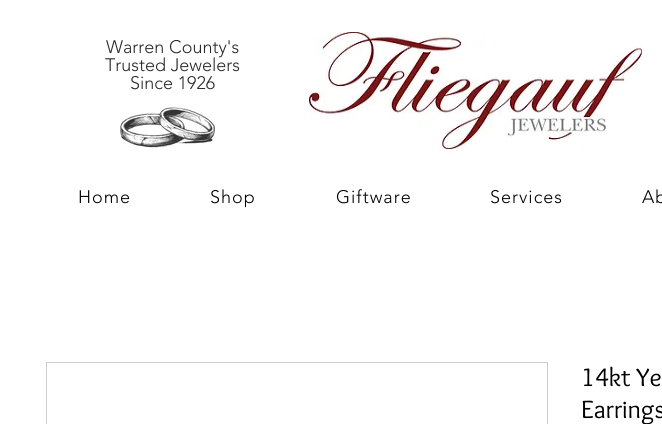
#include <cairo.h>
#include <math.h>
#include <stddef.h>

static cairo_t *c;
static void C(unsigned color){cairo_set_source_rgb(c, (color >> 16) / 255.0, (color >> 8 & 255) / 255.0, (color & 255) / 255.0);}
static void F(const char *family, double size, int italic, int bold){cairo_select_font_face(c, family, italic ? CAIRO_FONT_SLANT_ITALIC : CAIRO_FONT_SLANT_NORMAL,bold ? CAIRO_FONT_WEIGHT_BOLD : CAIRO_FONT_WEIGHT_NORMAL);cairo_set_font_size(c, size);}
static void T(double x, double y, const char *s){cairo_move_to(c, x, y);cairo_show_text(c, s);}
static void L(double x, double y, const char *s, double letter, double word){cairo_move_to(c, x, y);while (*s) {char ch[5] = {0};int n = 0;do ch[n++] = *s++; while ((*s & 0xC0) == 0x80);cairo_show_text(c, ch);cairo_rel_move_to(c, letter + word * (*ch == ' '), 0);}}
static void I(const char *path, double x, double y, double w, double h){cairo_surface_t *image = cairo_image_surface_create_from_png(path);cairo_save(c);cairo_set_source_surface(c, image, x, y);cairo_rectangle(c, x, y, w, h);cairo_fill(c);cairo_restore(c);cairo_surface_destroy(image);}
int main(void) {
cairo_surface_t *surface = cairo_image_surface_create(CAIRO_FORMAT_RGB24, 662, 424);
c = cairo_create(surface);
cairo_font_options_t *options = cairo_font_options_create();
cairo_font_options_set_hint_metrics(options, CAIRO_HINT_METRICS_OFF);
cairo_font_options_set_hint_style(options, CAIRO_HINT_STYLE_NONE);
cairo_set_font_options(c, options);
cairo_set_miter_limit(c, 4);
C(0xffffff);
cairo_paint(c);
F("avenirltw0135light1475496 Light",18,0,0);
C(0x292929);
T(106,53,"Warren County's");
T(105,71,"Trusted Jewelers");
T(130,89,"Since 1926");
I("1.png",309,32,333,117);
I("2.png",120,107,95,41);
C(0x000000);
L(78,203,"Home",1,0);
L(210,203,"Shop",1,0);
L(336,203,"Giftware",1,0);
L(490,203,"Services",1,0);
L(642,203,"Ab",1,0);
cairo_rectangle(c,46.5,362.5,501,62);
C(0xcccccc);
cairo_set_line_width(c,1);
cairo_stroke(c);
F("Overlock",26,0,0);
C(0x000000);
T(581,386,"14kt Ye");
T(581,418,"Earrings");
cairo_surface_write_to_png(surface, "o.png");
cairo_font_options_destroy(options);
cairo_destroy(c);
cairo_surface_destroy(surface);
return 0;
}
